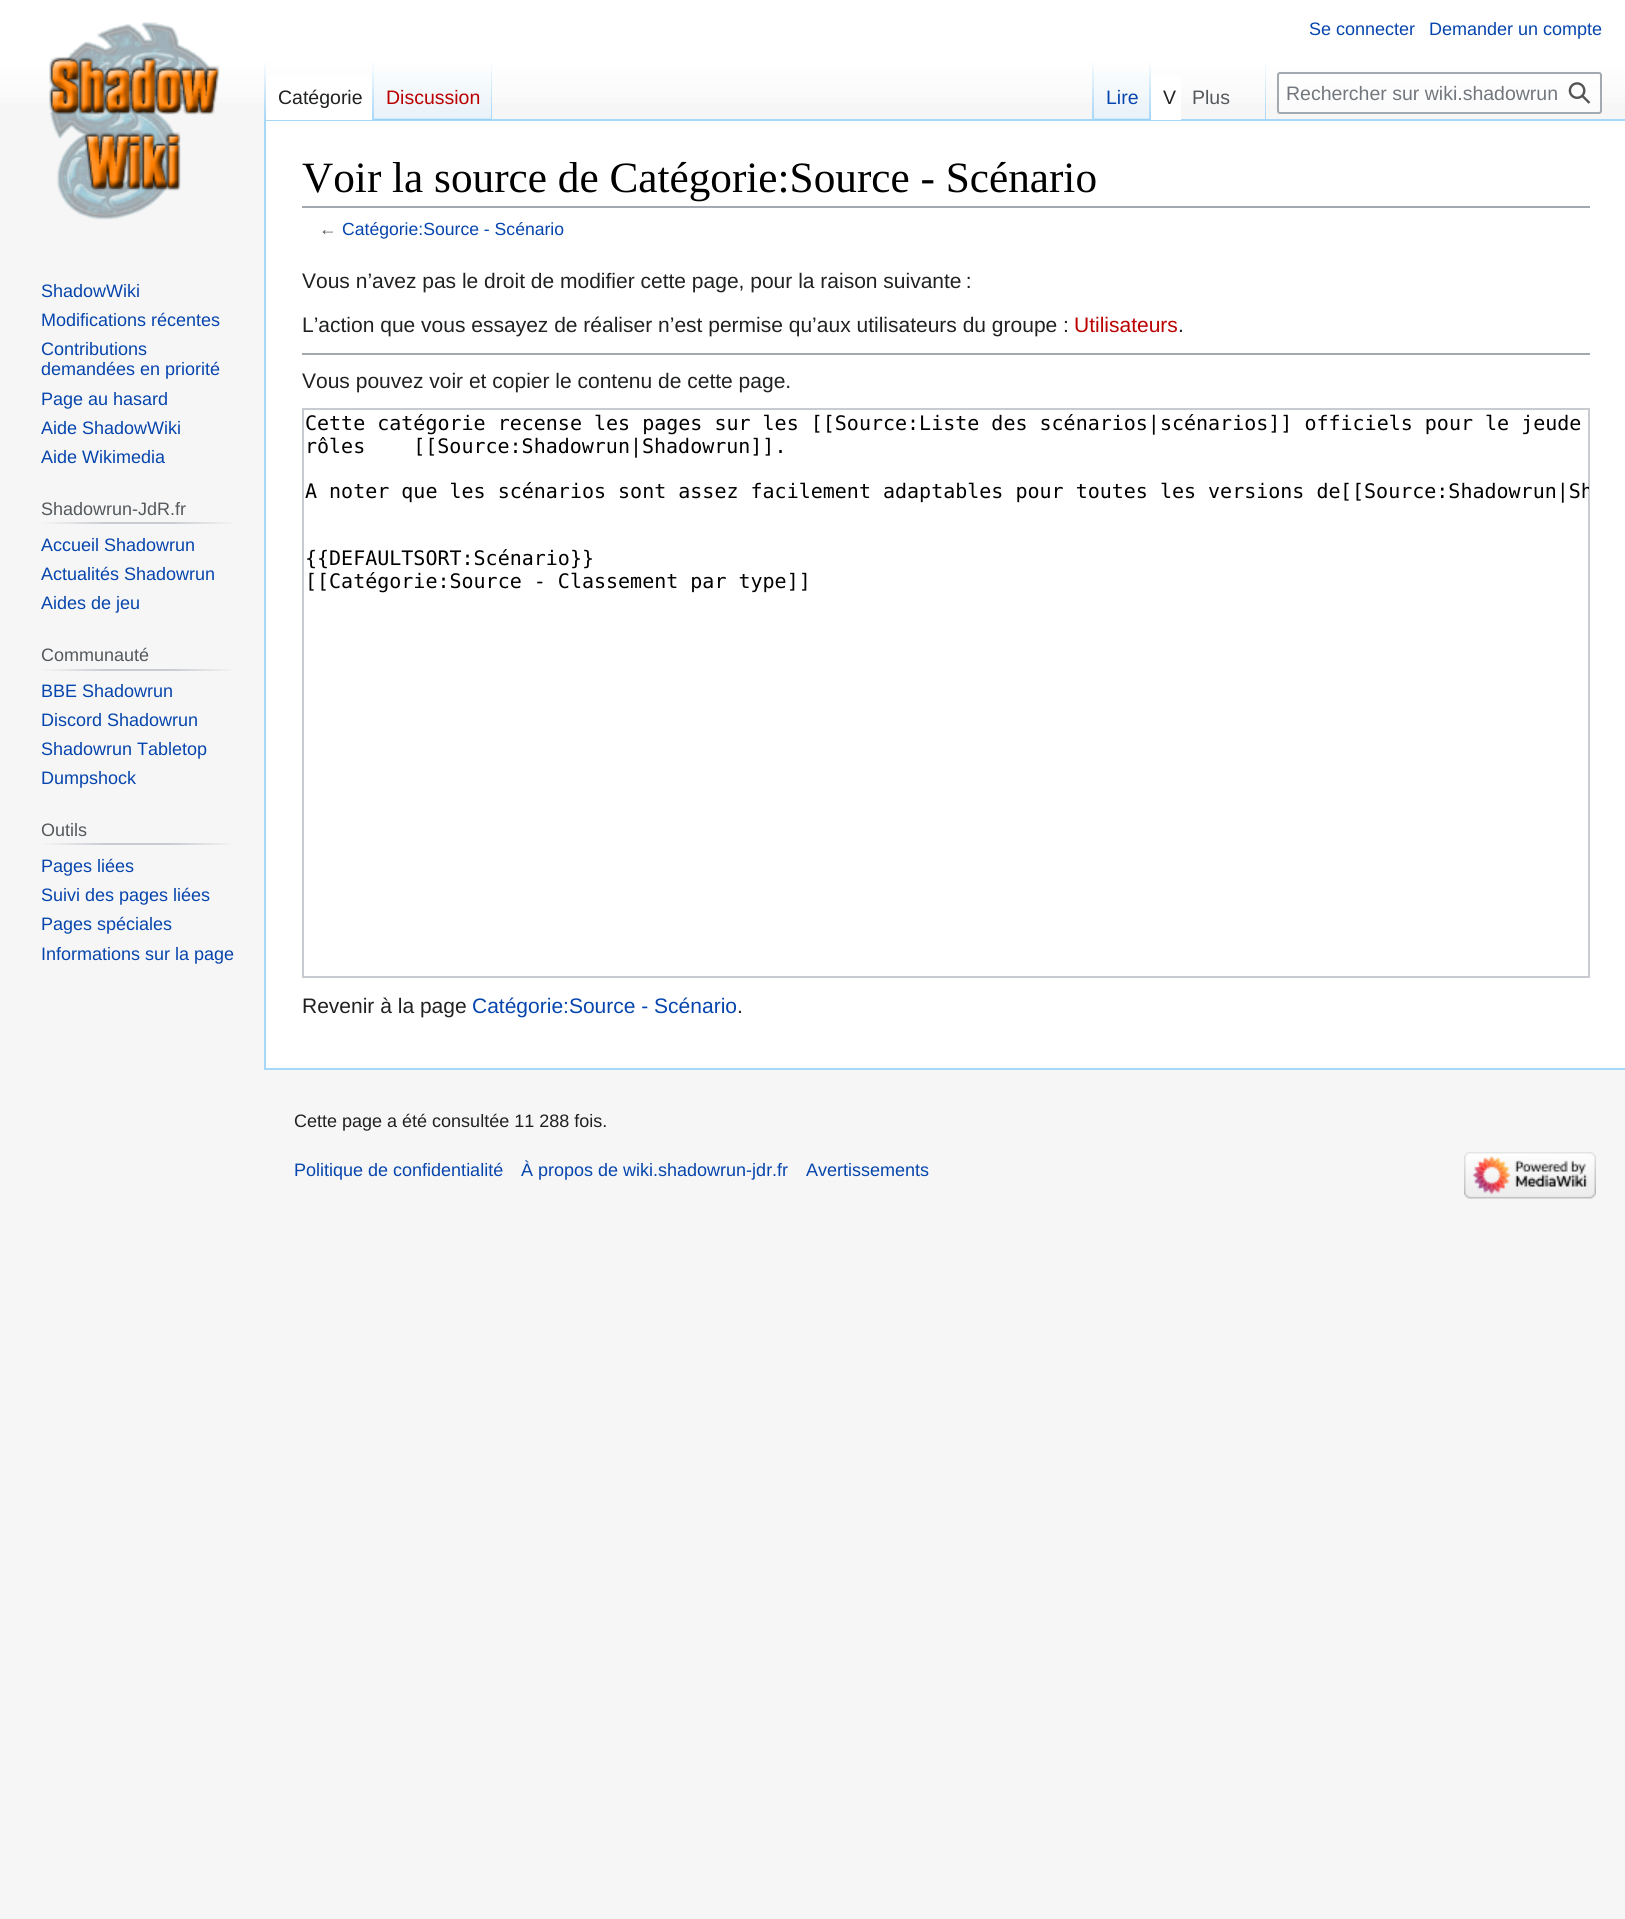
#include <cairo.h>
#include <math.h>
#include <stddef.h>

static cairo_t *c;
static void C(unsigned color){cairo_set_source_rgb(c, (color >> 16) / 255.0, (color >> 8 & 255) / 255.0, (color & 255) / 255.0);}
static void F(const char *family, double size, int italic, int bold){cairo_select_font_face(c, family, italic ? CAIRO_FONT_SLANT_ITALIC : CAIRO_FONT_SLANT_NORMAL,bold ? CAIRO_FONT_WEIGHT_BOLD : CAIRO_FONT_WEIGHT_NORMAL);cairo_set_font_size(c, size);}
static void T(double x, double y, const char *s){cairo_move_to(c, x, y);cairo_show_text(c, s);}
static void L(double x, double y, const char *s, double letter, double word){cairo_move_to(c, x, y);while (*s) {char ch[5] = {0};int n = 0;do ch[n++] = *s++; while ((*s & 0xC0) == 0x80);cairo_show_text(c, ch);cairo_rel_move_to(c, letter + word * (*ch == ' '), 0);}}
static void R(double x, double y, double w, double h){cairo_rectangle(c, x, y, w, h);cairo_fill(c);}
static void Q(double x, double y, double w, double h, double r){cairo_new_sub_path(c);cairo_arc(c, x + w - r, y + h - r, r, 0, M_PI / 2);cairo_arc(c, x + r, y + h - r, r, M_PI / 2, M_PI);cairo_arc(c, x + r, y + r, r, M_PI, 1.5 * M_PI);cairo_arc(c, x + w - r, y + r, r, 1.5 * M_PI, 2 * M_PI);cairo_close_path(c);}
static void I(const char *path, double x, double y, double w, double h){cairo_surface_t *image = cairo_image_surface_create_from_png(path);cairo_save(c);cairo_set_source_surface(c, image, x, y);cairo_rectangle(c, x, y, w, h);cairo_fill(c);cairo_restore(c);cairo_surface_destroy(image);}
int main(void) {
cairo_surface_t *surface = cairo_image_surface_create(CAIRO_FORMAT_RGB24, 1625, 1919);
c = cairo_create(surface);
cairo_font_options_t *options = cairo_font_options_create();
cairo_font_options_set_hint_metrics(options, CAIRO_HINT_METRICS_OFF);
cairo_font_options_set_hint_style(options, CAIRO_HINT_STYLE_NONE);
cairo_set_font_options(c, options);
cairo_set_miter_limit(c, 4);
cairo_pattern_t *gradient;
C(0xf6f6f6);
cairo_paint(c);
gradient = cairo_pattern_create_linear(813,0,813,120);
cairo_pattern_add_color_stop_rgba(gradient,.5,1,1,1,1);
cairo_pattern_add_color_stop_rgba(gradient,1,0.965,0.965,0.965,1);
cairo_set_source(c,gradient);
cairo_pattern_destroy(gradient);
R(0,0,1625,103);
F("Liberation Sans",18,0,0);
C(0x0645ad);
T(1309,35,"Se connecter");
T(1429,35,"Demander un compte");
C(0xa7d7f9);
R(264,119,1361,2);
R(264,1068,1361,2);
R(264,119,2,951);
gradient = cairo_pattern_create_linear(265,60,265,120);
cairo_pattern_add_color_stop_rgba(gradient,0,0.655,0.843,0.976,0);
cairo_pattern_add_color_stop_rgba(gradient,1,0.655,0.843,0.976,1);
cairo_set_source(c,gradient);
cairo_pattern_destroy(gradient);
R(264,60,2,60);
C(0xffffff);
R(266,77,106,43);
gradient = cairo_pattern_create_linear(373,60,373,120);
cairo_pattern_add_color_stop_rgba(gradient,0,1,1,1,1);
cairo_pattern_add_color_stop_rgba(gradient,1,0.655,0.843,0.976,1);
cairo_set_source(c,gradient);
cairo_pattern_destroy(gradient);
R(372,60,2,60);
F("Liberation Sans",19.5,0,0);
C(0x202122);
T(278,104,"Catégorie");
gradient = cairo_pattern_create_linear(433,120,433,60);
cairo_pattern_add_color_stop_rgba(gradient,0,0.467,0.757,0.965,1);
cairo_pattern_add_color_stop_rgba(gradient,.03,0.91,0.949,0.973,1);
cairo_pattern_add_color_stop_rgba(gradient,1,1,1,1,1);
cairo_set_source(c,gradient);
cairo_pattern_destroy(gradient);
R(374,69,118,51);
gradient = cairo_pattern_create_linear(491,60,491,120);
cairo_pattern_add_color_stop_rgba(gradient,0,0.655,0.843,0.976,0);
cairo_pattern_add_color_stop_rgba(gradient,1,0.655,0.843,0.976,1);
cairo_set_source(c,gradient);
cairo_pattern_destroy(gradient);
R(491,60,1,60);
C(0xba0000);
T(386,104,"Discussion");
gradient = cairo_pattern_create_linear(1093,60,1093,120);
cairo_pattern_add_color_stop_rgba(gradient,0,0.655,0.843,0.976,0);
cairo_pattern_add_color_stop_rgba(gradient,1,0.655,0.843,0.976,1);
cairo_set_source(c,gradient);
cairo_pattern_destroy(gradient);
R(1092,60,2,60);
gradient = cairo_pattern_create_linear(1122,120,1122,60);
cairo_pattern_add_color_stop_rgba(gradient,0,0.467,0.757,0.965,1);
cairo_pattern_add_color_stop_rgba(gradient,.03,0.91,0.949,0.973,1);
cairo_pattern_add_color_stop_rgba(gradient,1,1,1,1,1);
cairo_set_source(c,gradient);
cairo_pattern_destroy(gradient);
R(1094,69,57,51);
gradient = cairo_pattern_create_linear(1150,60,1150,120);
cairo_pattern_add_color_stop_rgba(gradient,0,0.655,0.843,0.976,0);
cairo_pattern_add_color_stop_rgba(gradient,1,0.655,0.843,0.976,1);
cairo_set_source(c,gradient);
cairo_pattern_destroy(gradient);
R(1149,60,2,60);
C(0x0645ad);
T(1106,104,"Lire");
C(0xffffff);
R(1151,77,30,43);
C(0x202122);
T(1163,104,"V");
gradient = cairo_pattern_create_linear(1265,60,1265,120);
cairo_pattern_add_color_stop_rgba(gradient,0,0.655,0.843,0.976,0);
cairo_pattern_add_color_stop_rgba(gradient,1,0.655,0.843,0.976,1);
cairo_set_source(c,gradient);
cairo_pattern_destroy(gradient);
R(1265,60,1,60);
C(0x54595d);
T(1192,104,"Plus");
cairo_set_source_rgba(c,1,1,1,0.5);
Q(1278,73,323,40,2);
cairo_fill_preserve(c);
C(0xa2a9b1);
cairo_stroke(c);
C(0x72777d);
T(1286,100,"Rechercher sur wiki.shadowrun");
I("1.png",1568,82,23,22);
I("2.png",49,22,171,198);
F("Liberation Sans",18,0,0);
C(0x0645ad);
T(41,297,"ShadowWiki");
T(41,326,"Modifications récentes");
T(41,355,"Contributions");
T(41,375,"demandées en priorité");
T(41,405,"Page au hasard");
T(41,434,"Aide ShadowWiki");
T(41,463,"Aide Wikimedia");
gradient = cairo_pattern_create_linear(41,523,237,523);
cairo_pattern_add_color_stop_rgba(gradient,0,0.965,0.965,0.965,1);
cairo_pattern_add_color_stop_rgba(gradient,.33,0.784,0.8,0.82,1);
cairo_pattern_add_color_stop_rgba(gradient,.66,0.784,0.8,0.82,1);
cairo_pattern_add_color_stop_rgba(gradient,1,0.965,0.965,0.965,1);
cairo_set_source(c,gradient);
cairo_pattern_destroy(gradient);
R(41,522,196,2);
C(0x54595d);
T(41,515,"Shadowrun-JdR.fr");
C(0x0645ad);
T(41,551,"Accueil Shadowrun");
T(41,580,"Actualités Shadowrun");
T(41,609,"Aides de jeu");
gradient = cairo_pattern_create_linear(41,670,237,670);
cairo_pattern_add_color_stop_rgba(gradient,0,0.965,0.965,0.965,1);
cairo_pattern_add_color_stop_rgba(gradient,.33,0.784,0.8,0.82,1);
cairo_pattern_add_color_stop_rgba(gradient,.66,0.784,0.8,0.82,1);
cairo_pattern_add_color_stop_rgba(gradient,1,0.965,0.965,0.965,1);
cairo_set_source(c,gradient);
cairo_pattern_destroy(gradient);
R(41,669,196,2);
C(0x54595d);
T(41,661,"Communauté");
C(0x0645ad);
T(41,697,"BBE Shadowrun");
T(41,726,"Discord Shadowrun");
T(41,755,"Shadowrun Tabletop");
T(41,784,"Dumpshock");
gradient = cairo_pattern_create_linear(41,844,237,844);
cairo_pattern_add_color_stop_rgba(gradient,0,0.965,0.965,0.965,1);
cairo_pattern_add_color_stop_rgba(gradient,.33,0.784,0.8,0.82,1);
cairo_pattern_add_color_stop_rgba(gradient,.66,0.784,0.8,0.82,1);
cairo_pattern_add_color_stop_rgba(gradient,1,0.965,0.965,0.965,1);
cairo_set_source(c,gradient);
cairo_pattern_destroy(gradient);
R(41,843,196,2);
C(0x54595d);
T(41,836,"Outils");
C(0x0645ad);
T(41,872,"Pages liées");
T(41,901,"Suivi des pages liées");
T(41,930,"Pages spéciales");
T(41,960,"Informations sur la page");
C(0xffffff);
R(266,121,1359,947);
C(0xa2a9b1);
R(302,206,1288,2);
F("Liberation Serif",43.25,0,0);
C(0x000000);
T(302,192,"Voir la source de Catégorie:Source - Scénario");
F("Liberation Sans",17.6,0,0);
C(0x54595d);
T(319,235,"←");
C(0x0645ad);
T(342,235,"Catégorie:Source - Scénario");
F("Liberation Sans",21,0,0);
C(0x202122);
T(302,288,"Vous n’avez pas le droit de modifier cette page, pour la raison suivante :");
T(302,332,"L’action que vous essayez de réaliser n’est permise qu’aux utilisateurs du groupe :");
C(0xba0000);
T(1074,332,"Utilisateurs");
C(0x202122);
T(1178,332,".");
C(0xa2a9b1);
R(302,353,1288,2);
C(0x202122);
T(302,388,"Vous pouvez voir et copier le contenu de cette page.");
cairo_rectangle(c,303,409,1286,568);
C(0xc8ccd1);
cairo_stroke(c);
F("DejaVu Sans Mono",20,0,0);
C(0x000000);
T(305,430,"Cette catégorie recense les pages sur les [[Source:Liste des scénarios|scénarios]] officiels pour le jeude");
L(305,453,"rôles [[Source:Shadowrun|Shadowrun]].",0,36);
T(305,498,"A noter que les scénarios sont assez facilement adaptables pour toutes les versions de");
cairo_save(c);
cairo_rectangle(c,303,410,1286,567);
cairo_clip(c);
T(1340,498,"[[Source:Shadowrun|Sh");
cairo_restore(c);
T(305,565,"{{DEFAULTSORT:Scénario}}");
T(305,588,"[[Catégorie:Source - Classement par type]]");
F("Liberation Sans",21,0,0);
C(0x202122);
T(302,1013,"Revenir à la page");
C(0x0645ad);
T(472,1013,"Catégorie:Source - Scénario");
C(0x202122);
T(737,1013,".");
F("Liberation Sans",18,0,0);
T(294,1127,"Cette page a été consultée 11 288 fois.");
C(0x0645ad);
T(294,1176,"Politique de confidentialité");
T(521,1176,"À propos de wiki.shadowrun-jdr.fr");
T(806,1176,"Avertissements");
I("3.png",1464,1152,132,47);
cairo_surface_write_to_png(surface, "o.png");
cairo_font_options_destroy(options);
cairo_destroy(c);
cairo_surface_destroy(surface);
return 0;
}
